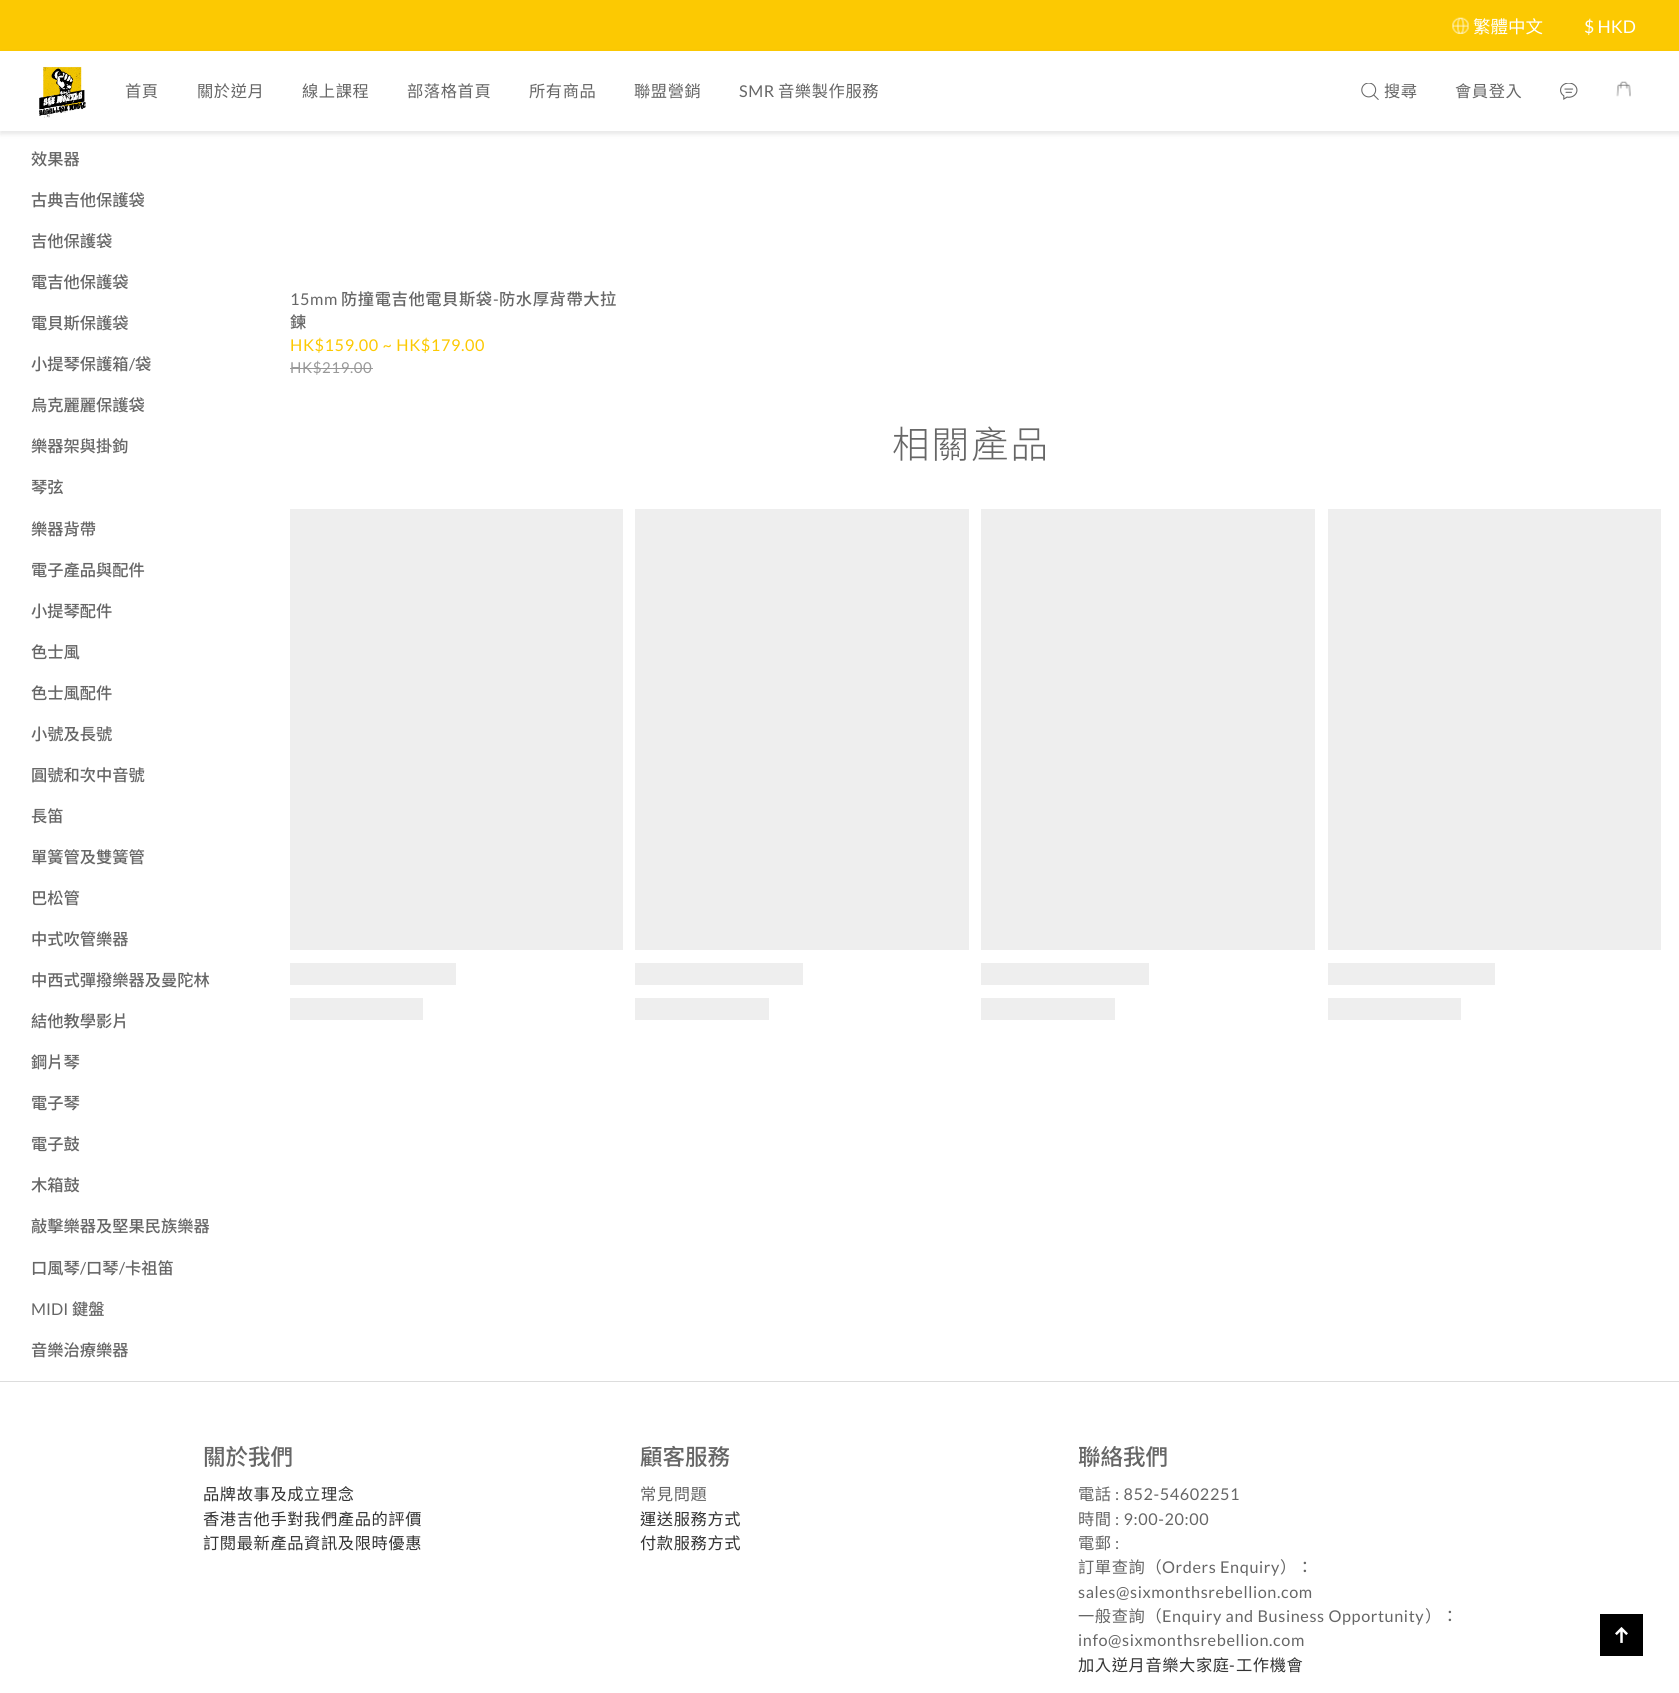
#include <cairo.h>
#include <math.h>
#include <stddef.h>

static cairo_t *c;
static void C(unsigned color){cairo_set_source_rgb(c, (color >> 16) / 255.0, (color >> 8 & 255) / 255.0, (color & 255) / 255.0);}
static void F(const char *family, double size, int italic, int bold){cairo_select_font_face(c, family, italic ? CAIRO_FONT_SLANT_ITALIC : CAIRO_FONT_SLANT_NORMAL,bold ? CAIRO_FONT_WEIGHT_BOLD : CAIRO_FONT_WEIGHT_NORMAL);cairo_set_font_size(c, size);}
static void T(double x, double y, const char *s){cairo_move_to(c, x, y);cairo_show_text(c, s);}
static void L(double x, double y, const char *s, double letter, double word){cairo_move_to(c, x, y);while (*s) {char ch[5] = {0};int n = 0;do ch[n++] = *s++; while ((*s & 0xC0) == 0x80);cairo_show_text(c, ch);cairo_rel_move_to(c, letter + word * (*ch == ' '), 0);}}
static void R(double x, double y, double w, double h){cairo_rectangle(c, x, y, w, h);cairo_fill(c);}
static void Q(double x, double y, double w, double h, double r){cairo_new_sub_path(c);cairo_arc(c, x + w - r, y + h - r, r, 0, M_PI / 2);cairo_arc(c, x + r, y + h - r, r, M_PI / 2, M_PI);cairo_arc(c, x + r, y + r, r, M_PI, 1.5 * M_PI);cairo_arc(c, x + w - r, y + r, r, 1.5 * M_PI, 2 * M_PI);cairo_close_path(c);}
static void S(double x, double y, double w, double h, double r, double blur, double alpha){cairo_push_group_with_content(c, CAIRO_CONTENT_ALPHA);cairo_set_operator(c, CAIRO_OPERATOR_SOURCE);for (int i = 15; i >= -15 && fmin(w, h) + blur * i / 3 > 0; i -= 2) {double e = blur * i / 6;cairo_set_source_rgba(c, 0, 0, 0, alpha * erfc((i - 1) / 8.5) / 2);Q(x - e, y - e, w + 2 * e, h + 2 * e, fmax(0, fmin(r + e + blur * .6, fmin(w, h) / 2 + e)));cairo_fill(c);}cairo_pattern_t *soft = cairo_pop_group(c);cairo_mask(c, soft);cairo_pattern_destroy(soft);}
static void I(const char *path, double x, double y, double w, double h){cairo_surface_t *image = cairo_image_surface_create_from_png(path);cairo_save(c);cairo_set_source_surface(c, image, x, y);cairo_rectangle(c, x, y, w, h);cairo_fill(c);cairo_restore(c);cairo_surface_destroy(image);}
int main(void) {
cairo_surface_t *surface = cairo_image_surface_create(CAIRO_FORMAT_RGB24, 1679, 1693);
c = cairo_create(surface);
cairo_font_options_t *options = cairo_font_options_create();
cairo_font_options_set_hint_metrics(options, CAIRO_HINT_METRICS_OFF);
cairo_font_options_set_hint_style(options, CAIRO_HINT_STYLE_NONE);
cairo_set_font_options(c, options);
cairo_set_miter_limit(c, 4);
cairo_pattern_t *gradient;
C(0xffffff);
cairo_paint(c);
C(0xfcc902);
R(0,0,1679,51);
I("1.png",1452,17,17,17);
F("Noto Sans TC",17.5,0,0);
C(0xffffff);
T(1473,33,"繁體中文");
F("Lato",17.5,0,0);
T(1584,33,"$ HKD");
C(0x000000);
S(0,54,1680,80,0,2.5,.1);
C(0xffffff);
R(0,51,1679,80);
I("2.png",39,66,47,52);
F("Noto Sans TC",16.25,0,0);
C(0x666666);
L(125,97,"首頁",.6,0);
L(197,97,"關於逆月",.6,0);
L(302,97,"線上課程",.6,0);
L(407,97,"部落格首頁",.6,0);
L(529,97,"所有商品",.6,0);
L(634,97,"聯盟營銷",.6,0);
F("Lato",16.25,0,0);
L(739,97,"SMR",.6,0);
F("Noto Sans TC",16.25,0,0);
L(778,97,"音樂製作服務",.6,0);
I("3.png",1361,83,18,17);
L(1384,97,"搜尋",.6,0);
L(1455,97,"會員登入",.6,0);
I("4.png",1560,83,18,17);
I("5.png",1616,81,15,16);
F("Noto Sans TC Medium",16.25,0,0);
T(31,165,"效果器");
T(31,206,"古典吉他保護袋");
T(31,247,"吉他保護袋");
T(31,288,"電吉他保護袋");
T(31,329,"電貝斯保護袋");
T(31,370,"小提琴保護箱");
F("Lato",16.25,0,0);
T(129,370,"/");
F("Noto Sans TC Medium",16.25,0,0);
T(135,370,"袋");
T(31,411,"烏克麗麗保護袋");
T(31,452,"樂器架與掛鉤");
T(31,493,"琴弦");
T(31,535,"樂器背帶");
T(31,576,"電子產品與配件");
T(31,617,"小提琴配件");
T(31,658,"色士風");
T(31,699,"色士風配件");
T(31,740,"小號及長號");
T(31,781,"圓號和次中音號");
T(31,822,"長笛");
T(31,863,"單簧管及雙簧管");
T(31,904,"巴松管");
T(31,945,"中式吹管樂器");
T(31,986,"中西式彈撥樂器及曼陀林");
T(31,1027,"結他教學影片");
T(31,1068,"鋼片琴");
T(31,1109,"電子琴");
T(31,1150,"電子鼓");
T(31,1191,"木箱鼓");
T(31,1232,"敲擊樂器及堅果民族樂器");
T(31,1274,"口風琴");
F("Lato",16.25,0,0);
T(80,1274,"/");
F("Noto Sans TC Medium",16.25,0,0);
T(86,1274,"口琴");
F("Lato",16.25,0,0);
T(119,1274,"/");
F("Noto Sans TC Medium",16.25,0,0);
T(125,1274,"卡祖笛");
F("Lato",16.25,0,0);
T(31,1315,"MIDI");
F("Noto Sans TC Medium",16.25,0,0);
T(72,1315,"鍵盤");
T(31,1356,"音樂治療樂器");
F("Lato",16.25,0,0);
L(290,305,"15mm",.6,0);
F("Noto Sans TC Medium",16.25,0,0);
L(341,305,"防撞電吉他電貝斯袋",.6,0);
F("Lato",16.25,0,0);
L(493,305,"-",.6,0);
F("Noto Sans TC Medium",16.25,0,0);
L(499,305,"防水厚背帶大拉",.6,0);
L(290,328,"鍊",.6,0);
F("Lato",16.25,0,0);
C(0xfcc902);
L(290,351,"HK$159.00 ~ HK$179.00",.6,0);
F("Lato",15,0,0);
C(0x999999);
L(290,373,"HK$219.00",.6,0);
R(290,368,83,1);
F("Noto Sans TC Light",37.5,0,0);
C(0x666666);
L(892,458,"相關產品",2,0);
gradient = cairo_pattern_create_linear(-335,729,915,729);
cairo_pattern_add_color_stop_rgba(gradient,.1,0.933,0.933,0.933,1);
cairo_pattern_add_color_stop_rgba(gradient,.3,0.875,0.875,0.875,1);
cairo_pattern_add_color_stop_rgba(gradient,.5,0.933,0.933,0.933,1);
cairo_set_source(c,gradient);
cairo_pattern_destroy(gradient);
R(290,509,333,441);
gradient = cairo_pattern_create_linear(-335,974,915,974);
cairo_pattern_add_color_stop_rgba(gradient,.1,0.933,0.933,0.933,1);
cairo_pattern_add_color_stop_rgba(gradient,.3,0.875,0.875,0.875,1);
cairo_pattern_add_color_stop_rgba(gradient,.5,0.933,0.933,0.933,1);
cairo_set_source(c,gradient);
cairo_pattern_destroy(gradient);
R(290,963,166,22);
gradient = cairo_pattern_create_linear(-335,1009,915,1009);
cairo_pattern_add_color_stop_rgba(gradient,.1,0.933,0.933,0.933,1);
cairo_pattern_add_color_stop_rgba(gradient,.3,0.875,0.875,0.875,1);
cairo_pattern_add_color_stop_rgba(gradient,.5,0.933,0.933,0.933,1);
cairo_set_source(c,gradient);
cairo_pattern_destroy(gradient);
R(290,998,133,22);
gradient = cairo_pattern_create_linear(10,729,1260,729);
cairo_pattern_add_color_stop_rgba(gradient,.1,0.933,0.933,0.933,1);
cairo_pattern_add_color_stop_rgba(gradient,.3,0.875,0.875,0.875,1);
cairo_pattern_add_color_stop_rgba(gradient,.5,0.933,0.933,0.933,1);
cairo_set_source(c,gradient);
cairo_pattern_destroy(gradient);
R(635,509,334,441);
gradient = cairo_pattern_create_linear(10,974,1260,974);
cairo_pattern_add_color_stop_rgba(gradient,.1,0.933,0.933,0.933,1);
cairo_pattern_add_color_stop_rgba(gradient,.3,0.875,0.875,0.875,1);
cairo_pattern_add_color_stop_rgba(gradient,.5,0.933,0.933,0.933,1);
cairo_set_source(c,gradient);
cairo_pattern_destroy(gradient);
R(635,963,168,22);
gradient = cairo_pattern_create_linear(10,1009,1260,1009);
cairo_pattern_add_color_stop_rgba(gradient,.1,0.933,0.933,0.933,1);
cairo_pattern_add_color_stop_rgba(gradient,.3,0.875,0.875,0.875,1);
cairo_pattern_add_color_stop_rgba(gradient,.5,0.933,0.933,0.933,1);
cairo_set_source(c,gradient);
cairo_pattern_destroy(gradient);
R(635,998,134,22);
gradient = cairo_pattern_create_linear(356,729,1606,729);
cairo_pattern_add_color_stop_rgba(gradient,.1,0.933,0.933,0.933,1);
cairo_pattern_add_color_stop_rgba(gradient,.3,0.875,0.875,0.875,1);
cairo_pattern_add_color_stop_rgba(gradient,.5,0.933,0.933,0.933,1);
cairo_set_source(c,gradient);
cairo_pattern_destroy(gradient);
R(981,509,334,441);
gradient = cairo_pattern_create_linear(356,974,1606,974);
cairo_pattern_add_color_stop_rgba(gradient,.1,0.933,0.933,0.933,1);
cairo_pattern_add_color_stop_rgba(gradient,.3,0.875,0.875,0.875,1);
cairo_pattern_add_color_stop_rgba(gradient,.5,0.933,0.933,0.933,1);
cairo_set_source(c,gradient);
cairo_pattern_destroy(gradient);
R(981,963,168,22);
gradient = cairo_pattern_create_linear(356,1009,1606,1009);
cairo_pattern_add_color_stop_rgba(gradient,.1,0.933,0.933,0.933,1);
cairo_pattern_add_color_stop_rgba(gradient,.3,0.875,0.875,0.875,1);
cairo_pattern_add_color_stop_rgba(gradient,.5,0.933,0.933,0.933,1);
cairo_set_source(c,gradient);
cairo_pattern_destroy(gradient);
R(981,998,134,22);
gradient = cairo_pattern_create_linear(703,729,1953,729);
cairo_pattern_add_color_stop_rgba(gradient,.1,0.933,0.933,0.933,1);
cairo_pattern_add_color_stop_rgba(gradient,.3,0.875,0.875,0.875,1);
cairo_pattern_add_color_stop_rgba(gradient,.5,0.933,0.933,0.933,1);
cairo_set_source(c,gradient);
cairo_pattern_destroy(gradient);
R(1328,509,333,441);
gradient = cairo_pattern_create_linear(703,974,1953,974);
cairo_pattern_add_color_stop_rgba(gradient,.1,0.933,0.933,0.933,1);
cairo_pattern_add_color_stop_rgba(gradient,.3,0.875,0.875,0.875,1);
cairo_pattern_add_color_stop_rgba(gradient,.5,0.933,0.933,0.933,1);
cairo_set_source(c,gradient);
cairo_pattern_destroy(gradient);
R(1328,963,167,22);
gradient = cairo_pattern_create_linear(703,1009,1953,1009);
cairo_pattern_add_color_stop_rgba(gradient,.1,0.933,0.933,0.933,1);
cairo_pattern_add_color_stop_rgba(gradient,.3,0.875,0.875,0.875,1);
cairo_pattern_add_color_stop_rgba(gradient,.5,0.933,0.933,0.933,1);
cairo_set_source(c,gradient);
cairo_pattern_destroy(gradient);
R(1328,998,133,22);
C(0xdddddd);
R(0,1381,1679,1);
F("Noto Sans TC Medium",22.5,0,0);
C(0x666666);
T(203,1465,"關於我們");
F("Noto Sans TC",16.25,0,0);
C(0x333333);
L(203,1500,"品牌故事及成立理念",.6,0);
L(203,1525,"香港吉他手對我們產品的評價",.6,0);
L(203,1549,"訂閱最新產品資訊及限時優惠",.6,0);
F("Noto Sans TC Medium",22.5,0,0);
C(0x666666);
T(640,1465,"顧客服務");
F("Noto Sans TC",16.25,0,0);
L(640,1500,"常見問題",.6,0);
C(0x333333);
L(640,1525,"運送服務方式",.6,0);
L(640,1549,"付款服務方式",.6,0);
F("Noto Sans TC Medium",22.5,0,0);
C(0x666666);
T(1078,1465,"聯絡我們");
F("Noto Sans TC",16.25,0,0);
L(1078,1500,"電話",.6,0);
F("Lato",16.25,0,0);
L(1115,1500,": 852-54602251",.6,0);
F("Noto Sans TC",16.25,0,0);
L(1078,1525,"時間",.6,0);
F("Lato",16.25,0,0);
L(1115,1525,": 9:00-20:00",.6,0);
F("Noto Sans TC",16.25,0,0);
L(1078,1549,"電郵",.6,0);
F("Lato",16.25,0,0);
L(1115,1549,":",.6,0);
F("Noto Sans TC",16.25,0,0);
L(1078,1573,"訂單查詢（",.6,0);
F("Lato",16.25,0,0);
L(1162,1573,"Orders Enquiry",.6,0);
F("Noto Sans TC",16.25,0,0);
L(1280,1573,"）：",.6,0);
F("Lato",16.25,0,0);
L(1078,1598,"sales@sixmonthsrebellion.com",.6,0);
F("Noto Sans TC",16.25,0,0);
L(1078,1622,"一般查詢（",.6,0);
F("Lato",16.25,0,0);
L(1162,1622,"Enquiry and Business Opportunity",.6,0);
F("Noto Sans TC",16.25,0,0);
L(1425,1622,"）：",.6,0);
F("Lato",16.25,0,0);
L(1078,1646,"info@sixmonthsrebellion.com",.6,0);
F("Noto Sans TC",16.25,0,0);
C(0x333333);
L(1078,1671,"加入逆月音樂大家庭",.6,0);
F("Lato",16.25,0,0);
L(1229,1671,"-",.6,0);
F("Noto Sans TC",16.25,0,0);
L(1236,1671,"工作機會",.6,0);
C(0x000000);
R(1600,1614,43,42);
I("6.png",1615,1627,13,16);
cairo_surface_write_to_png(surface, "o.png");
cairo_font_options_destroy(options);
cairo_destroy(c);
cairo_surface_destroy(surface);
return 0;
}
